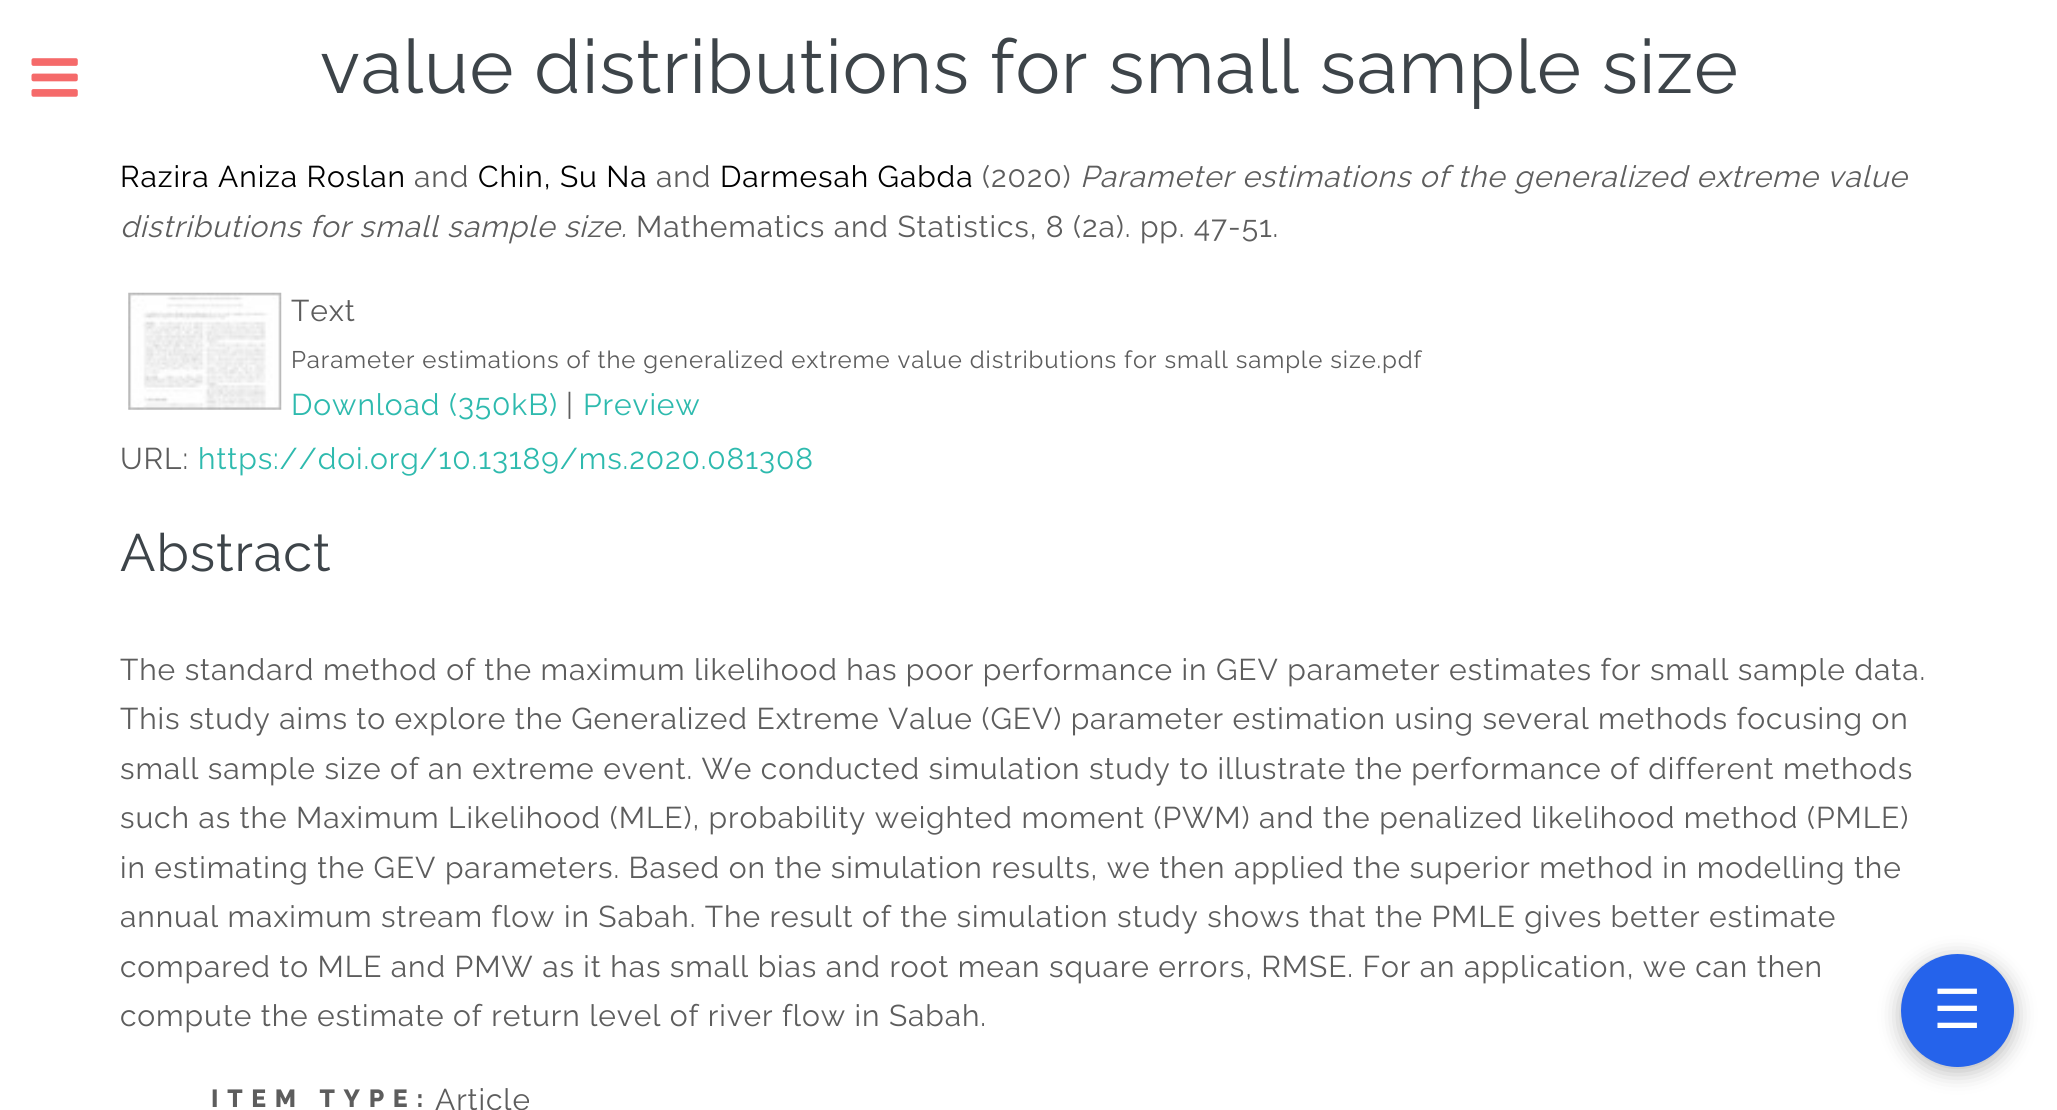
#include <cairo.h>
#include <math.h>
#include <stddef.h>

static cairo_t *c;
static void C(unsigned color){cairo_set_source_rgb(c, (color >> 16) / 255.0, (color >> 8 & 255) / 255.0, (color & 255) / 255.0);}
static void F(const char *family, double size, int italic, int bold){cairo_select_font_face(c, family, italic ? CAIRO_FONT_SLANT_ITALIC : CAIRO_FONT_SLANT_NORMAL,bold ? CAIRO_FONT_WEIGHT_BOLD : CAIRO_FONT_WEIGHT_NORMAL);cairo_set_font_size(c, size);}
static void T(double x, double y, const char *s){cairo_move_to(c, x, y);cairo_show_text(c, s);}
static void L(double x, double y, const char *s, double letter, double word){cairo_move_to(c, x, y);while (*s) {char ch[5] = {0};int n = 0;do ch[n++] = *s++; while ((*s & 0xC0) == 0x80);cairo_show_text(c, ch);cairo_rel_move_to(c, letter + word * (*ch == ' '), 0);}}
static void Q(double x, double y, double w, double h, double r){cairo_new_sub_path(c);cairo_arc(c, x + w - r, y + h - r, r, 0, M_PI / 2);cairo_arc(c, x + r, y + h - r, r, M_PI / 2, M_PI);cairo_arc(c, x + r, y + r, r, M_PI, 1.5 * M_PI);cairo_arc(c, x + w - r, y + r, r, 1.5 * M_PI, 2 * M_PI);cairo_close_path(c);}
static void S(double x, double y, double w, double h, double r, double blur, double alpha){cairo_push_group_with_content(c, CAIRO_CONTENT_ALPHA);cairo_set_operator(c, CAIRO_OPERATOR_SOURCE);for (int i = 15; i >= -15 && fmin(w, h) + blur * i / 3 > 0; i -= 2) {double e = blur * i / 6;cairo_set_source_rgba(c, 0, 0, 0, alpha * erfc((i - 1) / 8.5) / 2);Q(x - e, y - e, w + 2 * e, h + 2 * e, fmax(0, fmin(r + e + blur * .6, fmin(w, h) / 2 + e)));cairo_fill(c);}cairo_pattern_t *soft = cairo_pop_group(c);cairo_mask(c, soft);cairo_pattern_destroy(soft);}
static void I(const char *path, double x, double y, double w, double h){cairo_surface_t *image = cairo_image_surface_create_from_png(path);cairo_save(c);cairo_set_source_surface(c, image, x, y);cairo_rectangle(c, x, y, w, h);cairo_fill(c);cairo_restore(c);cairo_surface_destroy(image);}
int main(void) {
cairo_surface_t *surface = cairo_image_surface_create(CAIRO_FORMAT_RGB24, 2057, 1110);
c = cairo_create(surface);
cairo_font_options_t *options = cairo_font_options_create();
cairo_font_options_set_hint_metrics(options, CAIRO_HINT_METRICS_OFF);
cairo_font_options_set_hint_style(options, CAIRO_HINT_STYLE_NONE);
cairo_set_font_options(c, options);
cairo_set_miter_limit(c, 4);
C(0xffffff);
cairo_paint(c);
I("1.png",31,58,47,39);
F("Raleway",75,0,0);
C(0x3d4449);
L(320,93,"value distributions for small sample size",.9,0);
F("Raleway",30,0,0);
C(0x000000);
L(120,187,"Razira Aniza Roslan",.9,0);
C(0x5d5d5d);
L(414,187,"and",.9,0);
C(0x000000);
L(478,187,"Chin, Su Na",.9,0);
C(0x5d5d5d);
L(656,187,"and",.9,0);
C(0x000000);
L(720,187,"Darmesah Gabda",.9,0);
C(0x5d5d5d);
L(982,187,"(2020)",.9,0);
F("Raleway",30,1,0);
L(1080,187,"Parameter estimations of the generalized extreme value",.9,0);
L(120,237,"distributions for small sample size.",.9,0);
F("Raleway",30,0,0);
L(636,237,"Mathematics and Statistics, 8 (2a). pp. 47-51.",.9,0);
I("2.png",128,292,154,118);
L(291,321,"Text",.9,0);
F("Raleway",24,0,0);
L(291,368,"Parameter estimations of the generalized extreme value distributions for small sample size.pdf",.9,0);
F("Raleway",30,0,0);
C(0x2ebaae);
L(291,415,"Download (350kB)",.9,0);
C(0x5d5d5d);
L(566,415,"|",.9,0);
C(0x2ebaae);
L(583,415,"Preview",.9,0);
C(0x5d5d5d);
L(120,469,"URL:",.9,0);
C(0x2ebaae);
L(198,469,"https://doi.org/10.13189/ms.2020.081308",.9,0);
F("Raleway",52.5,0,0);
C(0x3d4449);
L(120,571,"Abstract",.9,0);
F("Raleway",30,0,0);
C(0x5d5d5d);
L(120,680,"The standard method of the maximum likelihood has poor performance in GEV parameter estimates for small sample data.",.9,0);
L(120,729,"This study aims to explore the Generalized Extreme Value (GEV) parameter estimation using several methods focusing on",.9,0);
L(120,779,"small sample size of an extreme event. We conducted simulation study to illustrate the performance of different methods",.9,0);
L(120,828,"such as the Maximum Likelihood (MLE), probability weighted moment (PWM) and the penalized likelihood method (PMLE)",.9,0);
L(120,878,"in estimating the GEV parameters. Based on the simulation results, we then applied the superior method in modelling the",.9,0);
L(120,927,"annual maximum stream flow in Sabah. The result of the simulation study shows that the PMLE gives better estimate",.9,0);
L(120,977,"compared to MLE and PMW as it has small bias and root mean square errors, RMSE. For an application, we can then",.9,0);
L(120,1026,"compute the estimate of return level of river flow in Sabah.",.9,0);
F("Raleway ExtraBold",24.75,0,0);
L(211,1107,"ITEM TYPE:",8.75,0);
F("Raleway",30,0,0);
L(435,1110,"Article",.9,0);
C(0x000000);
S(1901,959,113,112,56,11,.3);
C(0x2563eb);
cairo_arc(c,1957.5,1010.5,56.5,0,2 * M_PI);
cairo_fill(c);
F("DejaVu Sans",54,0,0);
C(0xffffff);
T(1933,1028,"☰");
cairo_surface_write_to_png(surface, "o.png");
cairo_font_options_destroy(options);
cairo_destroy(c);
cairo_surface_destroy(surface);
return 0;
}
